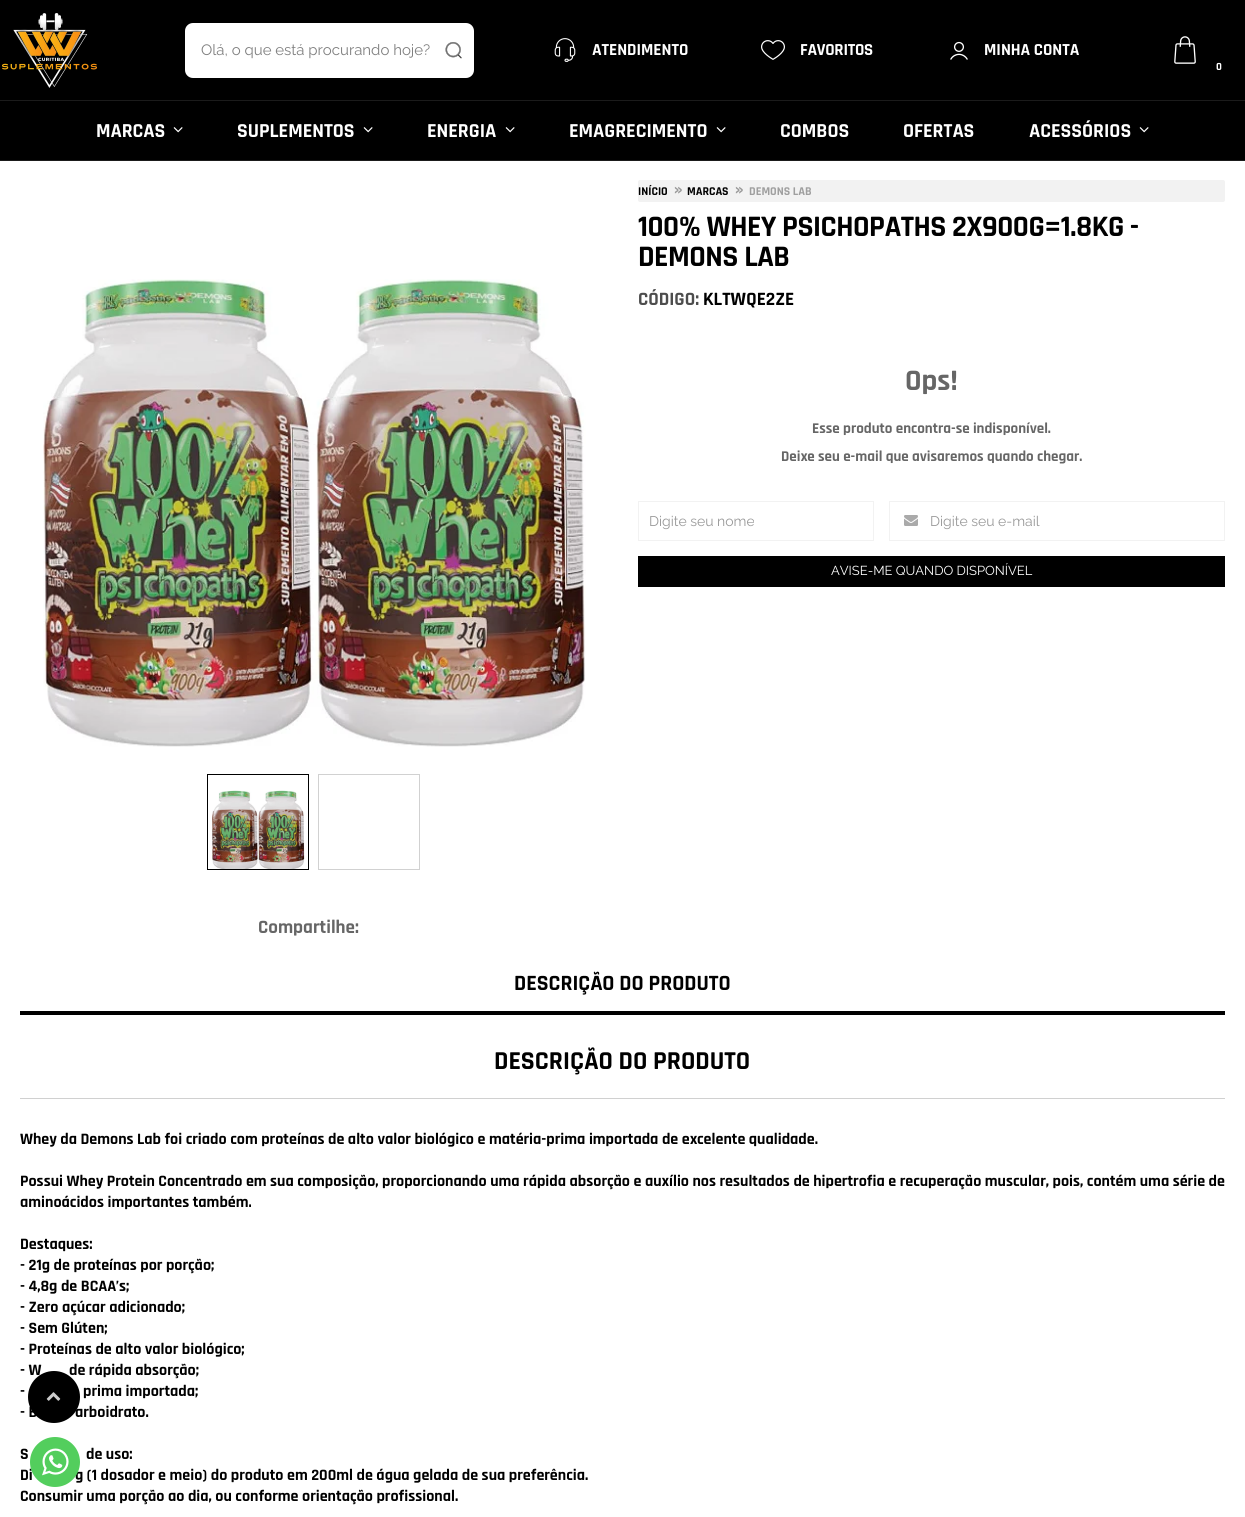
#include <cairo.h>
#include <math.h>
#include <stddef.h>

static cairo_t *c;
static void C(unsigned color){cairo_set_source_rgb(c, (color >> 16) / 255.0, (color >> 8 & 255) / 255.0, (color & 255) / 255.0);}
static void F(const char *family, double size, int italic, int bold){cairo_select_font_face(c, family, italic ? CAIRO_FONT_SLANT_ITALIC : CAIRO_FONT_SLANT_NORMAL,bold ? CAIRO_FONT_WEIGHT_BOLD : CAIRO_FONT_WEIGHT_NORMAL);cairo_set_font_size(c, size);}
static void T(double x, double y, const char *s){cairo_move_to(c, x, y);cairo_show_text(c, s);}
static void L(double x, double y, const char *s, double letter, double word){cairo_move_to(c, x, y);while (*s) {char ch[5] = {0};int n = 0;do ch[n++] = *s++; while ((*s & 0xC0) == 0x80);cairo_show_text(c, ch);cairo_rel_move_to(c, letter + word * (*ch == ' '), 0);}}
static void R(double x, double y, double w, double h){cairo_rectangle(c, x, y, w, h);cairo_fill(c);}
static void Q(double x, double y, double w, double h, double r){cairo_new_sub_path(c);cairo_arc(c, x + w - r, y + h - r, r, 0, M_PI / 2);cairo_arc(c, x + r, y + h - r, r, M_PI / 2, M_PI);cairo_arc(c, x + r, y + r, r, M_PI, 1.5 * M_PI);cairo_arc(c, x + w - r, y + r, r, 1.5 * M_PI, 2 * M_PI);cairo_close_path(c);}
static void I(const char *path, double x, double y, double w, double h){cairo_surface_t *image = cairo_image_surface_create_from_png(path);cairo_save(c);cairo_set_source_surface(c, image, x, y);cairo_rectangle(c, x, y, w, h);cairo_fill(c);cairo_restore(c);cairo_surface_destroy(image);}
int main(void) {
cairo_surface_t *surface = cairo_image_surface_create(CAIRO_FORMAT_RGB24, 1245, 1517);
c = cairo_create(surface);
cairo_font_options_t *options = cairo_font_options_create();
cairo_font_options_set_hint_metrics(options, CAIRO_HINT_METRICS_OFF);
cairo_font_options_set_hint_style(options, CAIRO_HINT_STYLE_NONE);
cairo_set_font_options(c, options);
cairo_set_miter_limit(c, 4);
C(0xffffff);
cairo_paint(c);
C(0x000000);
R(0,0,1245,100);
I("1.png",2,13,95,75);
C(0xffffff);
Q(185,23,289,55,8);
cairo_fill(c);
F("Raleway Thin",15,0,0);
C(0x808080);
T(201,55,"Olá, o que está procurando hoje?");
I("2.png",445,42,17,17);
I("3.png",554,38,22,24);
F("Rajdhani",17,0,1);
C(0xffffff);
T(592,55,"ATENDIMENTO");
I("4.png",761,40,24,20);
L(800,55,"FAVORITOS",-.25,0);
I("5.png",950,41,18,19);
T(984,55,"MINHA CONTA");
I("6.png",1174,36,22,28);
F("Rajdhani",11,0,1);
T(1216,70,"0");
C(0x000000);
R(0,101,1245,59);
C(0x1b1b1b);
R(0,100,1245,1);
R(0,160,1245,1);
F("Rajdhani",20,0,1);
C(0xffffff);
T(96,137,"MARCAS");
I("7.png",173,127,10,6);
T(237,137,"SUPLEMENTOS");
I("7.png",363,127,10,6);
T(427,137,"ENERGIA");
I("7.png",505,127,10,6);
T(569,137,"EMAGRECIMENTO");
I("7.png",716,127,10,6);
T(780,137,"COMBOS");
T(903,137,"OFERTAS");
T(1029,137,"ACESSÓRIOS");
I("7.png",1139,127,10,6);
C(0xf2f2f2);
Q(638,180,587,22,2);
cairo_fill(c);
F("Rajdhani",12,0,1);
C(0x000000);
T(638,195,"INÍCIO");
F("Rajdhani",19,0,1);
C(0x999999);
T(674,195,"»");
F("Rajdhani",12,0,1);
C(0x000000);
T(687,195,"MARCAS");
F("Rajdhani",19,0,1);
C(0x999999);
T(735,195,"»");
F("Rajdhani",12,0,1);
C(0x9f9f9f);
T(749,195,"DEMONS LAB");
F("Rajdhani",30,0,1);
C(0x000000);
L(638,236,"100% WHEY PSICHOPATHS 2X900G=1.8KG -",-.5,0);
L(638,266,"DEMONS LAB",-.5,0);
F("Rajdhani",19,0,1);
C(0x4d4d4d);
T(638,305,"CÓDIGO:");
C(0x000000);
T(703,305,"KLTWQE2ZE");
F("Rajdhani",30,0,1);
C(0x666666);
T(905,390,"Ops!");
F("Rajdhani",15,0,1);
T(812,433,"Esse produto encontra-se indisponível.");
T(781,461,"Deixe seu e-mail que avisaremos quando chegar.");
cairo_rectangle(c,638.5,501.5,235,39);
C(0xf2f2f2);
cairo_set_line_width(c,1);
cairo_stroke(c);
F("Raleway Thin",14,0,0);
C(0x999999);
T(649,526,"Digite seu nome");
cairo_rectangle(c,889.5,501.5,335,39);
C(0xf2f2f2);
cairo_stroke(c);
I("8.png",904,515,14,11);
C(0x999999);
T(930,526,"Digite seu e-mail");
C(0x000000);
R(638,556,587,31);
F("Raleway Thin",13,0,0);
C(0xffffff);
T(831,575,"AVISE-ME QUANDO DISPONÍVEL");
I("9.png",43,279,543,468);
cairo_rectangle(c,207.5,774.5,101,95);
C(0x000000);
cairo_stroke(c);
I("10.png",212,790,93,79);
cairo_rectangle(c,318.5,774.5,101,95);
C(0xd1d1d1);
cairo_stroke(c);
F("Rajdhani",19,0,1);
C(0x666666);
T(258,933,"Compartilhe:");
C(0x000000);
R(20,1011,1205,4);
F("Rajdhani",22,0,1);
T(514,990,"DESCRIÇÃO DO PRODUTO");
C(0xd0d0d0);
R(20,1098,1205,1);
F("Rajdhani",26,0,1);
C(0x000000);
T(494,1069,"DESCRIÇÃO DO PRODUTO");
F("Rajdhani",16,0,1);
T(20,1144,"Whey da Demons Lab foi criado com proteínas de alto valor biológico e matéria-prima importada de excelente qualidade.");
T(20,1186,"Possui Whey Protein Concentrado em sua composição, proporcionando uma rápida absorção e auxílio nos resultados de hipertrofia e recuperação muscular, pois, contém uma série de");
T(20,1207,"aminoácidos importantes também.");
T(20,1249,"Destaques:");
T(20,1270,"- 21g de proteínas por porção;");
T(20,1291,"- 4,8g de BCAA’s;");
T(20,1312,"- Zero açúcar adicionado;");
T(20,1333,"- Sem Glúten;");
T(20,1354,"- Proteínas de alto valor biológico;");
T(20,1375,"- W");
T(69,1375,"de rápida absorção;");
T(20,1396,"-");
T(83,1396,"prima importada;");
T(20,1417,"- B");
T(75,1417,"arboidrato.");
T(20,1459,"S");
T(86,1459,"de uso:");
T(20,1480,"Di");
T(75,1480,"g (1 dosador e meio) do produto em 200ml de água gelada de sua preferência.");
T(20,1501,"Consumir uma porção ao dia, ou conforme orientação profissional.");
cairo_new_path(c);
cairo_arc(c,54,1397,26,0,2 * M_PI);
cairo_fill(c);
I("11.png",46,1392,15,9);
C(0x53ce5d);
cairo_arc(c,55,1462,25,0,2 * M_PI);
cairo_fill(c);
I("12.png",42,1448,27,28);
cairo_surface_write_to_png(surface, "o.png");
cairo_font_options_destroy(options);
cairo_destroy(c);
cairo_surface_destroy(surface);
return 0;
}
